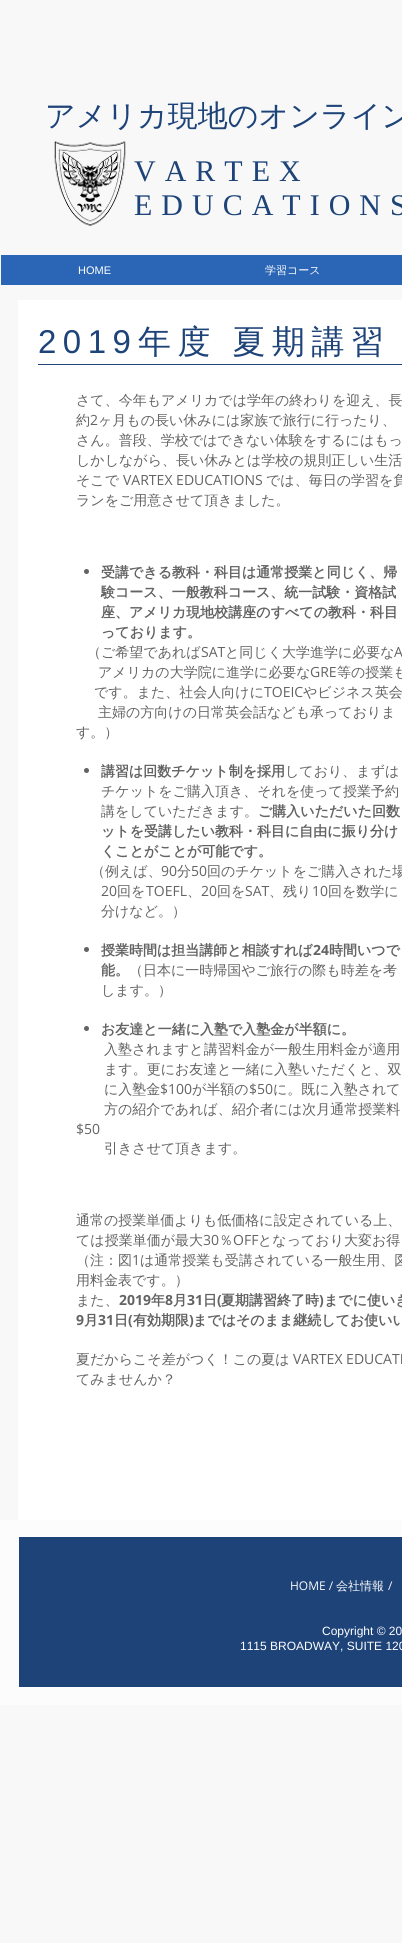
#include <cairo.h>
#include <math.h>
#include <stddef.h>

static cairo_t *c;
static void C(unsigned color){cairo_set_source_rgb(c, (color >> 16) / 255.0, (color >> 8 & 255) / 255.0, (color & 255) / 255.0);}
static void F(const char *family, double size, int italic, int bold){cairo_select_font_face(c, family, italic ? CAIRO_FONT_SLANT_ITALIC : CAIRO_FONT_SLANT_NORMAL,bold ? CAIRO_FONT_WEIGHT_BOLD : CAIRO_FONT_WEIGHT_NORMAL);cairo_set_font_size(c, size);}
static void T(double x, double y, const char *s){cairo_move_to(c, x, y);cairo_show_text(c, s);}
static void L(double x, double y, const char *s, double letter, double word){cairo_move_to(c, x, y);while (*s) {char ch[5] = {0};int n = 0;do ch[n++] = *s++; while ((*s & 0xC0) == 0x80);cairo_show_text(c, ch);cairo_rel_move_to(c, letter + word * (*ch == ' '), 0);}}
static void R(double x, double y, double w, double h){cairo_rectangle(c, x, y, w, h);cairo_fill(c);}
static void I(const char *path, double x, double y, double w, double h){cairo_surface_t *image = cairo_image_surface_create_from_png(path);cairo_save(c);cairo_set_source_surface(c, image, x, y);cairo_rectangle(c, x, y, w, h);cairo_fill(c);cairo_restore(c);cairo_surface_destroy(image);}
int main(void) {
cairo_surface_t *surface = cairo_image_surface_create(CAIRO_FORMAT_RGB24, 402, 1943);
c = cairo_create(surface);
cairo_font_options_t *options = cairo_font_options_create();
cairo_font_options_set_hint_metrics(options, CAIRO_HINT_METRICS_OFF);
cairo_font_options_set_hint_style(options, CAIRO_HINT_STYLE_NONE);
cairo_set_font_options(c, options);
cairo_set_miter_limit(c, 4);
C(0xf8f8f8);
cairo_paint(c);
F("WenQuanYi Zen Hei Medium",30,0,0);
C(0x1d4379);
T(45,126,"アメリカ現地のオンライン");
I("1.png",54,141,72,85);
F("Liberation Serif",30,0,0);
L(134,181,"VARTEX",9,0);
L(134,215,"EDUCATIONS",9,0);
C(0x2b65b5);
R(1,255,401,30);
F("Liberation Sans",11,0,0);
C(0xffffff);
T(78,274,"HOME");
F("WenQuanYi Zen Hei Medium",11,0,0);
T(265,274,"学習コース");
R(18,300,384,1220);
F("Liberation Sans",33,0,0);
C(0x1d4379);
L(38,353,"2019",6.5,0);
F("WenQuanYi Zen Hei Medium",33,0,0);
L(138,353,"年度 夏期講習",6.5,-1);
R(38,364,364,1);
F("WenQuanYi Zen Hei Medium",14,0,0);
C(0x636363);
T(76,405,"さて、今年もアメリカでは学年の終わりを迎え、長");
T(76,425,"約");
F("Open Sans",14,0,0);
T(90,425,"2");
F("WenQuanYi Zen Hei Medium",14,0,0);
T(98,425,"ヶ月もの長い休みには家族で旅行に行ったり、");
T(76,445,"さん。普段、学校ではできない体験をするにはもっ");
T(76,465,"しかしながら、長い休みとは学校の規則正しい生活");
T(76,485,"そこで");
F("Open Sans",14,0,0);
T(123,485,"VARTEX EDUCATIONS");
F("WenQuanYi Zen Hei Medium",14,0,0);
T(266,485,"では、毎日の学習を負");
T(76,505,"ランをご用意させて頂きました。");
cairo_new_path(c);
cairo_arc(c,86.5,571.5,2.5,0,2 * M_PI);
cairo_fill(c);
F("WenQuanYi Zen Hei",14,0,1);
T(101,577,"受講できる教科・科目は通常授業と同じく、帰");
T(101,597,"験コース、一般教科コース、統一試験・資格試");
T(101,617,"座、アメリカ現地校講座のすべての教科・科目");
T(101,637,"っております。");
F("WenQuanYi Zen Hei Medium",14,0,0);
T(87,657,"（ご希望であれば");
F("Open Sans",14,0,0);
T(201,657,"SAT");
F("WenQuanYi Zen Hei Medium",14,0,0);
T(225,657,"と同じく大学進学に必要な");
F("Open Sans",14,0,0);
T(394,657,"A");
F("WenQuanYi Zen Hei Medium",14,0,0);
T(98,677,"アメリカの大学院に進学に必要な");
F("Open Sans",14,0,0);
T(310,677,"GRE");
F("WenQuanYi Zen Hei Medium",14,0,0);
T(337,677,"等の授業も");
T(94,697,"です。また、社会人向けに");
F("Open Sans",14,0,0);
T(264,697,"TOEIC");
F("WenQuanYi Zen Hei Medium",14,0,0);
T(303,697,"やビジネス英会");
T(98,717,"主婦の方向けの日常英会話なども承っておりま");
T(76,737,"す。）");
cairo_new_path(c);
cairo_arc(c,86.5,770.5,2.5,0,2 * M_PI);
cairo_fill(c);
F("WenQuanYi Zen Hei",14,0,1);
T(101,776,"講習は回数チケット制を採用");
F("WenQuanYi Zen Hei Medium",14,0,0);
T(285,776,"しており、まずは");
T(101,796,"チケットをご購入頂き、それを使って授業予約");
T(101,816,"講をしていただきます。");
F("WenQuanYi Zen Hei",14,0,1);
T(258,816,"ご購入いただいた回数");
T(101,836,"ットを受講したい教科・科目に自由に振り分け");
T(101,856,"くことがことが可能です。");
F("WenQuanYi Zen Hei Medium",14,0,0);
T(91,876,"（例えば、");
F("Open Sans",14,0,0);
T(161,876,"90");
F("WenQuanYi Zen Hei Medium",14,0,0);
T(177,876,"分");
F("Open Sans",14,0,0);
T(191,876,"50");
F("WenQuanYi Zen Hei Medium",14,0,0);
T(207,876,"回のチケットをご購入された場");
F("Open Sans",14,0,0);
T(101,896,"20");
F("WenQuanYi Zen Hei Medium",14,0,0);
T(117,896,"回を");
F("Open Sans",14,0,0);
T(146,896,"TOEFL");
F("WenQuanYi Zen Hei Medium",14,0,0);
T(187,896,"、");
F("Open Sans",14,0,0);
T(201,896,"20");
F("WenQuanYi Zen Hei Medium",14,0,0);
T(217,896,"回を");
F("Open Sans",14,0,0);
T(245,896,"SAT");
F("WenQuanYi Zen Hei Medium",14,0,0);
T(269,896,"、残り");
F("Open Sans",14,0,0);
T(312,896,"10");
F("WenQuanYi Zen Hei Medium",14,0,0);
T(328,896,"回を数学に");
T(101,916,"分けなど。）");
cairo_new_path(c);
cairo_arc(c,86.5,949.5,2.5,0,2 * M_PI);
cairo_fill(c);
F("WenQuanYi Zen Hei",14,0,1);
T(101,955,"授業時間は担当講師と相談すれば");
F("Open Sans",14,0,1);
T(313,955,"24");
F("WenQuanYi Zen Hei",14,0,1);
T(329,955,"時間いつで");
T(101,975,"能。");
F("WenQuanYi Zen Hei Medium",14,0,0);
T(129,975,"（日本に一時帰国やご旅行の際も時差を考");
T(101,995,"します。）");
cairo_new_path(c);
cairo_arc(c,86.5,1028.5,2.5,0,2 * M_PI);
cairo_fill(c);
F("WenQuanYi Zen Hei",14,0,1);
T(101,1034,"お友達と一緒に入塾で入塾金が半額に。");
F("WenQuanYi Zen Hei Medium",14,0,0);
T(104,1054,"入塾されますと講習料金が一般生用料金が適用");
T(104,1074,"ます。更にお友達と一緒に入塾いただくと、双");
T(104,1094,"に入塾金");
F("Open Sans",14,0,0);
T(160,1094,"$100");
F("WenQuanYi Zen Hei Medium",14,0,0);
T(192,1094,"が半額の");
F("Open Sans",14,0,0);
T(249,1094,"$50");
F("WenQuanYi Zen Hei Medium",14,0,0);
T(273,1094,"に。既に入塾されて");
T(104,1114,"方の紹介であれば、紹介者には次月通常授業料");
F("Open Sans",14,0,0);
T(76,1134,"$50");
F("WenQuanYi Zen Hei Medium",14,0,0);
T(104,1153,"引きさせて頂きます。");
T(76,1225,"通常の授業単価よりも低価格に設定されている上、");
T(76,1245,"ては授業単価が最大");
F("Open Sans",14,0,0);
T(203,1245,"30");
F("WenQuanYi Zen Hei Medium",14,0,0);
T(219,1245,"％");
F("Open Sans",14,0,0);
T(233,1245,"OFF");
F("WenQuanYi Zen Hei Medium",14,0,0);
T(258,1245,"となっており大変お得");
T(76,1265,"（注：図");
F("Open Sans",14,0,0);
T(132,1265,"1");
F("WenQuanYi Zen Hei Medium",14,0,0);
T(140,1265,"は通常授業も受講されている一般生用、図");
T(76,1285,"用料金表です。）");
T(76,1305,"また、");
F("Open Sans",14,0,1);
T(119,1305,"2019");
F("WenQuanYi Zen Hei",14,0,1);
T(151,1305,"年");
F("Open Sans",14,0,1);
T(165,1305,"8");
F("WenQuanYi Zen Hei",14,0,1);
T(173,1305,"月");
F("Open Sans",14,0,1);
T(187,1305,"31");
F("WenQuanYi Zen Hei",14,0,1);
T(203,1305,"日");
F("Open Sans",14,0,1);
T(217,1305,"(");
F("WenQuanYi Zen Hei",14,0,1);
T(221,1305,"夏期講習終了時");
F("Open Sans",14,0,1);
T(319,1305,")");
F("WenQuanYi Zen Hei",14,0,1);
T(324,1305,"までに使いき");
F("Open Sans",14,0,1);
T(76,1325,"9");
F("WenQuanYi Zen Hei",14,0,1);
T(84,1325,"月");
F("Open Sans",14,0,1);
T(98,1325,"31");
F("WenQuanYi Zen Hei",14,0,1);
T(114,1325,"日");
F("Open Sans",14,0,1);
T(128,1325,"(");
F("WenQuanYi Zen Hei",14,0,1);
T(133,1325,"有効期限");
F("Open Sans",14,0,1);
T(189,1325,")");
F("WenQuanYi Zen Hei",14,0,1);
T(193,1325,"まではそのまま継続してお使いい");
F("WenQuanYi Zen Hei Medium",14,0,0);
T(76,1364,"夏だからこそ差がつく！この夏は");
F("Open Sans",14,0,0);
T(293,1364,"VARTEX EDUCATI");
F("WenQuanYi Zen Hei Medium",14,0,0);
T(76,1384,"てみませんか？");
C(0xfcfcfc);
R(0,1520,402,185);
C(0x1d4379);
R(19,1537,383,150);
F("Open Sans",12,0,0);
C(0xf8f8f8);
T(290,1590,"HOME /");
F("WenQuanYi Zen Hei Medium",12,0,0);
T(336,1590,"会社情報");
F("Open Sans",12,0,0);
T(388,1590,"/");
F("Liberation Sans",12,0,0);
C(0xffffff);
T(322,1635,"Copyright © 20");
T(240,1650,"1115 BROADWAY, SUITE 120");
cairo_surface_write_to_png(surface, "o.png");
cairo_font_options_destroy(options);
cairo_destroy(c);
cairo_surface_destroy(surface);
return 0;
}
